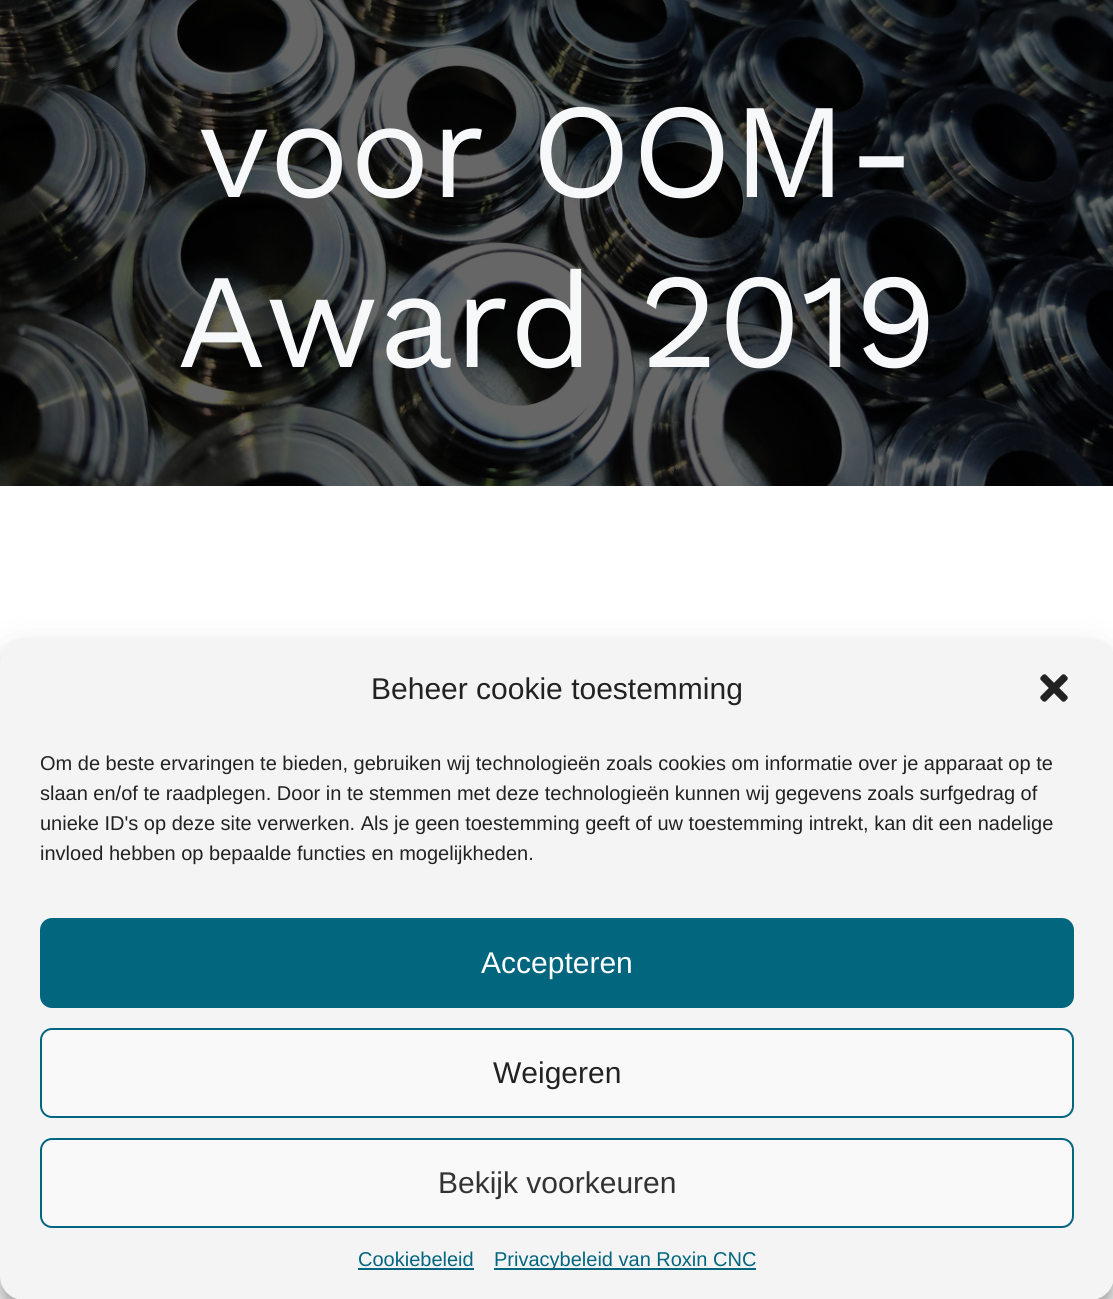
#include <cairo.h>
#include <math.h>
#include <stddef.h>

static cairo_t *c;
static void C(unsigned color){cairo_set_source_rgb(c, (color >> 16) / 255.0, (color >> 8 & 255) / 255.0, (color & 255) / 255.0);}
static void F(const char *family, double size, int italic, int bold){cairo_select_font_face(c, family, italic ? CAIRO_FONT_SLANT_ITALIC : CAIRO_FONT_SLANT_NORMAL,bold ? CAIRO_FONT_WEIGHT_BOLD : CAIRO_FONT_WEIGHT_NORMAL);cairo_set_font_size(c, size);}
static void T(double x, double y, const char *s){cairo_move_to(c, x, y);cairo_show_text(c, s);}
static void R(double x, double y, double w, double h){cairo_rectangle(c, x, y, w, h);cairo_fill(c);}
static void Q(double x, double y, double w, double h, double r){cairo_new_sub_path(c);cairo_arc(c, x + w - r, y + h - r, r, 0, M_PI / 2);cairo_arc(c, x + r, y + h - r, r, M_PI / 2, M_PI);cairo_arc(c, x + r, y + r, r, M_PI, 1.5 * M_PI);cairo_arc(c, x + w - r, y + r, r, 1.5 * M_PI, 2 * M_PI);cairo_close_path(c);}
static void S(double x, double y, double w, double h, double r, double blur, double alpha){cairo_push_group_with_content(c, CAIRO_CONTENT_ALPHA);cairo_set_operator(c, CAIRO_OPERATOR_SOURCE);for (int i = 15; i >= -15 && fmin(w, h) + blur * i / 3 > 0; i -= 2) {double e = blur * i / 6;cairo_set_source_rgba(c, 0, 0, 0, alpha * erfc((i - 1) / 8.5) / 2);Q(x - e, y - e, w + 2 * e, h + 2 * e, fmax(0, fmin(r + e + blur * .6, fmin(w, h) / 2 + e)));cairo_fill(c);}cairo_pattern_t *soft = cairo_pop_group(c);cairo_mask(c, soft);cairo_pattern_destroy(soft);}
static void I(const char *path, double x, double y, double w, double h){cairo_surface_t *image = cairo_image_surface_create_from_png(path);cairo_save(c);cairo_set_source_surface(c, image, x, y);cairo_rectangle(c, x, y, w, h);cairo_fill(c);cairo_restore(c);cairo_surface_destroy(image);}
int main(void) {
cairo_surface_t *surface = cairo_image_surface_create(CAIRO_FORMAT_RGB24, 1113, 1299);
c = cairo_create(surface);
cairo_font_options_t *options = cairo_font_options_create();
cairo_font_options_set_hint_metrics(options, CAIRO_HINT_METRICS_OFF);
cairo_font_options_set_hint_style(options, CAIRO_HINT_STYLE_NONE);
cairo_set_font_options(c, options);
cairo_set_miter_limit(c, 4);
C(0xffffff);
cairo_paint(c);
I("1.png",0,0,1113,486);
F("Work Sans",134.5,0,0);
C(0xf6f8fa);
T(199,197,"voor OOM-");
T(177,367,"Award 2019");
I("2.png",30,546,1054,92);
C(0x000000);
S(0,650,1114,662,24,6,.23);
S(0,658,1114,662,24,20,.19);
C(0xf4f4f4);
Q(0,638,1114,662,24);
cairo_fill(c);
F("Liberation Sans",30,0,0);
C(0x222222);
T(371,699,"Beheer cookie toestemming");
I("3.png",1040,674,28,28);
F("Liberation Sans",20,0,0);
T(40,770,"Om de beste ervaringen te bieden, gebruiken wij technologieën zoals cookies om informatie over je apparaat op te");
T(40,800,"slaan en/of te raadplegen. Door in te stemmen met deze technologieën kunnen wij gegevens zoals surfgedrag of");
T(40,830,"unieke ID's op deze site verwerken. Als je geen toestemming geeft of uw toestemming intrekt, kan dit een nadelige");
T(40,860,"invloed hebben op bepaalde functies en mogelijkheden.");
C(0x02667f);
Q(41,919,1032,88,11);
cairo_fill_preserve(c);
cairo_stroke(c);
F("Liberation Sans",30,0,0);
C(0xffffff);
T(481,973,"Accepteren");
C(0xf9f9f9);
Q(41,1029,1032,88,11);
cairo_fill_preserve(c);
C(0x02667f);
cairo_stroke(c);
C(0x222222);
T(493,1083,"Weigeren");
C(0xf9f9f9);
Q(41,1139,1032,88,11);
cairo_fill_preserve(c);
C(0x02667f);
cairo_stroke(c);
C(0x333333);
T(438,1193,"Bekijk voorkeuren");
F("Liberation Sans",20,0,0);
C(0x02667f);
T(358,1266,"Cookiebeleid");
R(358,1268,116,2);
R(494,1268,262,2);
T(494,1266,"Privacybeleid van Roxin CNC");
cairo_surface_write_to_png(surface, "o.png");
cairo_font_options_destroy(options);
cairo_destroy(c);
cairo_surface_destroy(surface);
return 0;
}
